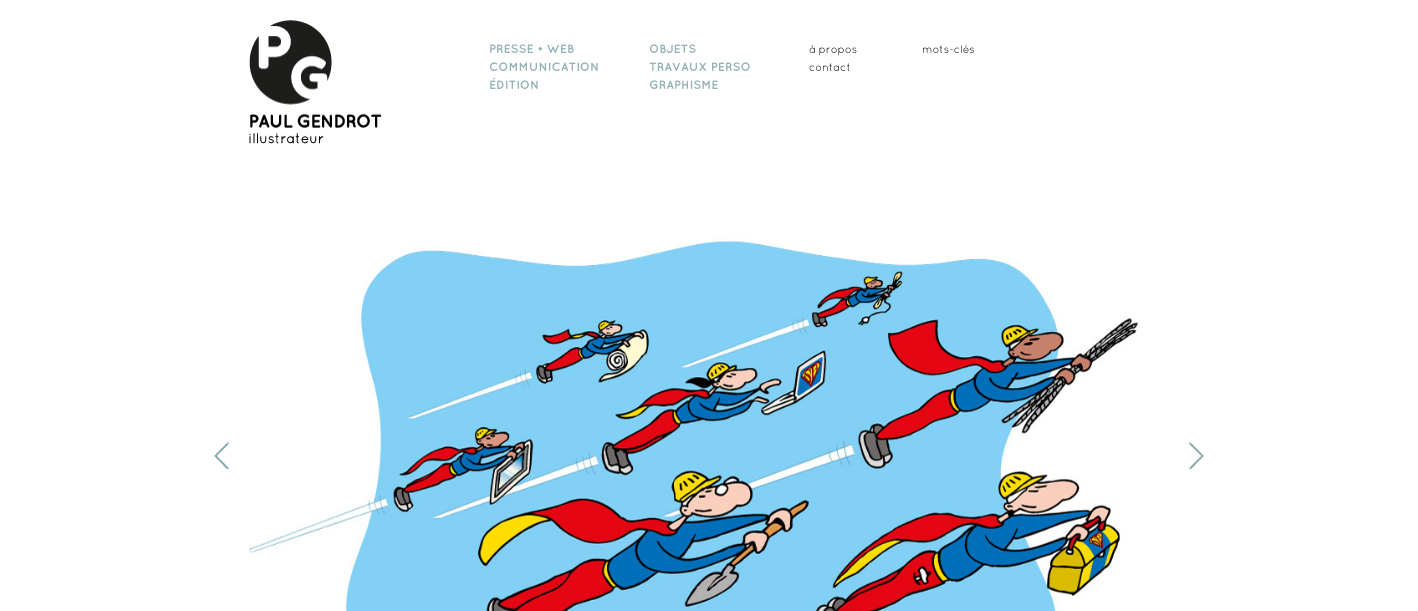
#include <cairo.h>
#include <math.h>
#include <stddef.h>

static cairo_t *c;
static void C(unsigned color){cairo_set_source_rgb(c, (color >> 16) / 255.0, (color >> 8 & 255) / 255.0, (color & 255) / 255.0);}
static void F(const char *family, double size, int italic, int bold){cairo_select_font_face(c, family, italic ? CAIRO_FONT_SLANT_ITALIC : CAIRO_FONT_SLANT_NORMAL,bold ? CAIRO_FONT_WEIGHT_BOLD : CAIRO_FONT_WEIGHT_NORMAL);cairo_set_font_size(c, size);}
static void T(double x, double y, const char *s){cairo_move_to(c, x, y);cairo_show_text(c, s);}
static void I(const char *path, double x, double y, double w, double h){cairo_surface_t *image = cairo_image_surface_create_from_png(path);cairo_save(c);cairo_set_source_surface(c, image, x, y);cairo_rectangle(c, x, y, w, h);cairo_fill(c);cairo_restore(c);cairo_surface_destroy(image);}
int main(void) {
cairo_surface_t *surface = cairo_image_surface_create(CAIRO_FORMAT_RGB24, 1418, 611);
c = cairo_create(surface);
cairo_font_options_t *options = cairo_font_options_create();
cairo_font_options_set_hint_metrics(options, CAIRO_HINT_METRICS_OFF);
cairo_font_options_set_hint_style(options, CAIRO_HINT_STYLE_NONE);
cairo_set_font_options(c, options);
cairo_set_miter_limit(c, 4);
C(0xffffff);
cairo_paint(c);
I("1.png",249,20,133,124);
F("Quicksand",12,0,1);
C(0x93b1b4);
T(489,53,"PRESSE • WEB");
T(489,71,"COMMUNICATION");
T(489,89,"ÉDITION");
T(649,53,"OBJETS");
T(649,71,"TRAVAUX PERSO");
T(649,89,"GRAPHISME");
F("Quicksand",11,0,0);
C(0x000000);
T(809,53,"à propos");
T(809,71,"contact");
T(922,53,"mots-clés");
I("2.png",214,442,15,27);
I("3.png",249,237,889,374);
I("4.png",1189,442,15,27);
cairo_surface_write_to_png(surface, "o.png");
cairo_font_options_destroy(options);
cairo_destroy(c);
cairo_surface_destroy(surface);
return 0;
}
